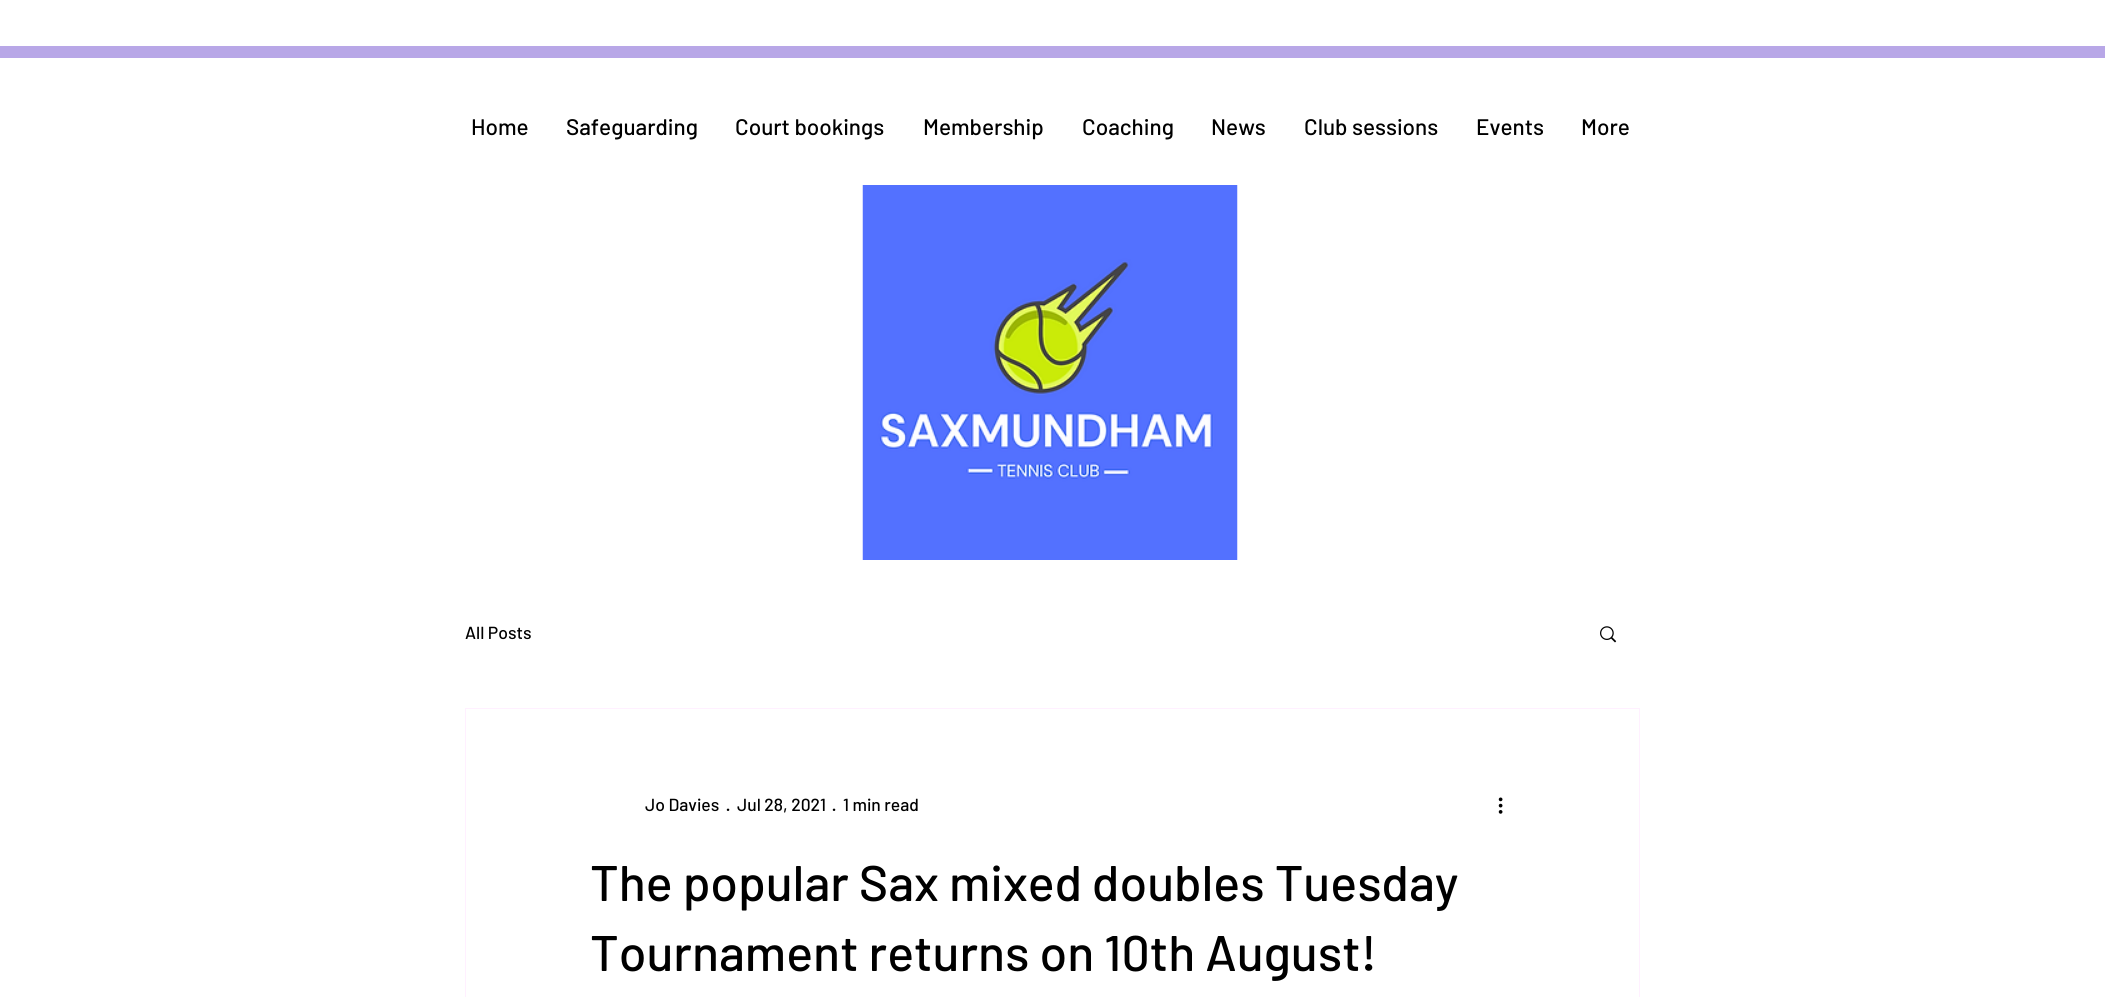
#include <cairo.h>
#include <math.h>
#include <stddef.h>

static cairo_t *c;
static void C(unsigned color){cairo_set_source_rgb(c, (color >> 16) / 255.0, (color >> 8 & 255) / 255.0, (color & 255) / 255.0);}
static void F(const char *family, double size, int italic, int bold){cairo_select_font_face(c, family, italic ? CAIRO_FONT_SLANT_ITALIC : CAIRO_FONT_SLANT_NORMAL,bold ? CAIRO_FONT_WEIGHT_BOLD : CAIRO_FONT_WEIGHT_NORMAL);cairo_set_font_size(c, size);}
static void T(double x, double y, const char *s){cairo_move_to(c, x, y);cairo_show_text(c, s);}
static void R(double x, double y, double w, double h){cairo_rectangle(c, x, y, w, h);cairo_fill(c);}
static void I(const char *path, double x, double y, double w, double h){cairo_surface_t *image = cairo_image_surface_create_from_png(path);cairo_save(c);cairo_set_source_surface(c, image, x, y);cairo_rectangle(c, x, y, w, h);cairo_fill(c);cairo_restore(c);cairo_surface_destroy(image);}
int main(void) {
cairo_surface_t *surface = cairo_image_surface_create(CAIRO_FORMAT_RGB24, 2105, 997);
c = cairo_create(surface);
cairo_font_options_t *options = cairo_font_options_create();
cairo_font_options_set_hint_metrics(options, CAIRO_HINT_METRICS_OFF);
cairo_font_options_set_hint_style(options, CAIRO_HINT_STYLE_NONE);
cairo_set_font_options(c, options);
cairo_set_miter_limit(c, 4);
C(0xffffff);
cairo_paint(c);
C(0xb8a7e7);
R(0,46,2105,12);
F("Barlow Medium",22.5,0,0);
C(0x000000);
T(471,135,"Home");
T(566,135,"Safeguarding");
T(735,135,"Court bookings");
T(923,135,"Membership");
T(1082,135,"Coaching");
T(1211,135,"News");
T(1304,135,"Club sessions");
T(1476,135,"Events");
T(1581,135,"More");
I("1.png",862,185,376,375);
F("Barlow Medium",17.5,0,0);
T(465,639,"All Posts");
I("2.png",1600,626,17,17);
cairo_rectangle(c,465.5,708.5,1174,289);
C(0xfff0ff);
cairo_set_line_width(c,1);
cairo_stroke(c);
C(0x000000);
T(645,811,"Jo Davies");
T(727,811,"·");
T(737,811,"Jul 28, 2021");
T(833,811,"·");
T(843,811,"1 min read");
I("3.png",1498,797,5,17);
F("Barlow Medium",50,0,0);
T(590,901,"The popular Sax mixed doubles Tuesday");
T(590,971,"Tournament returns on 10th August!");
cairo_surface_write_to_png(surface, "o.png");
cairo_font_options_destroy(options);
cairo_destroy(c);
cairo_surface_destroy(surface);
return 0;
}
